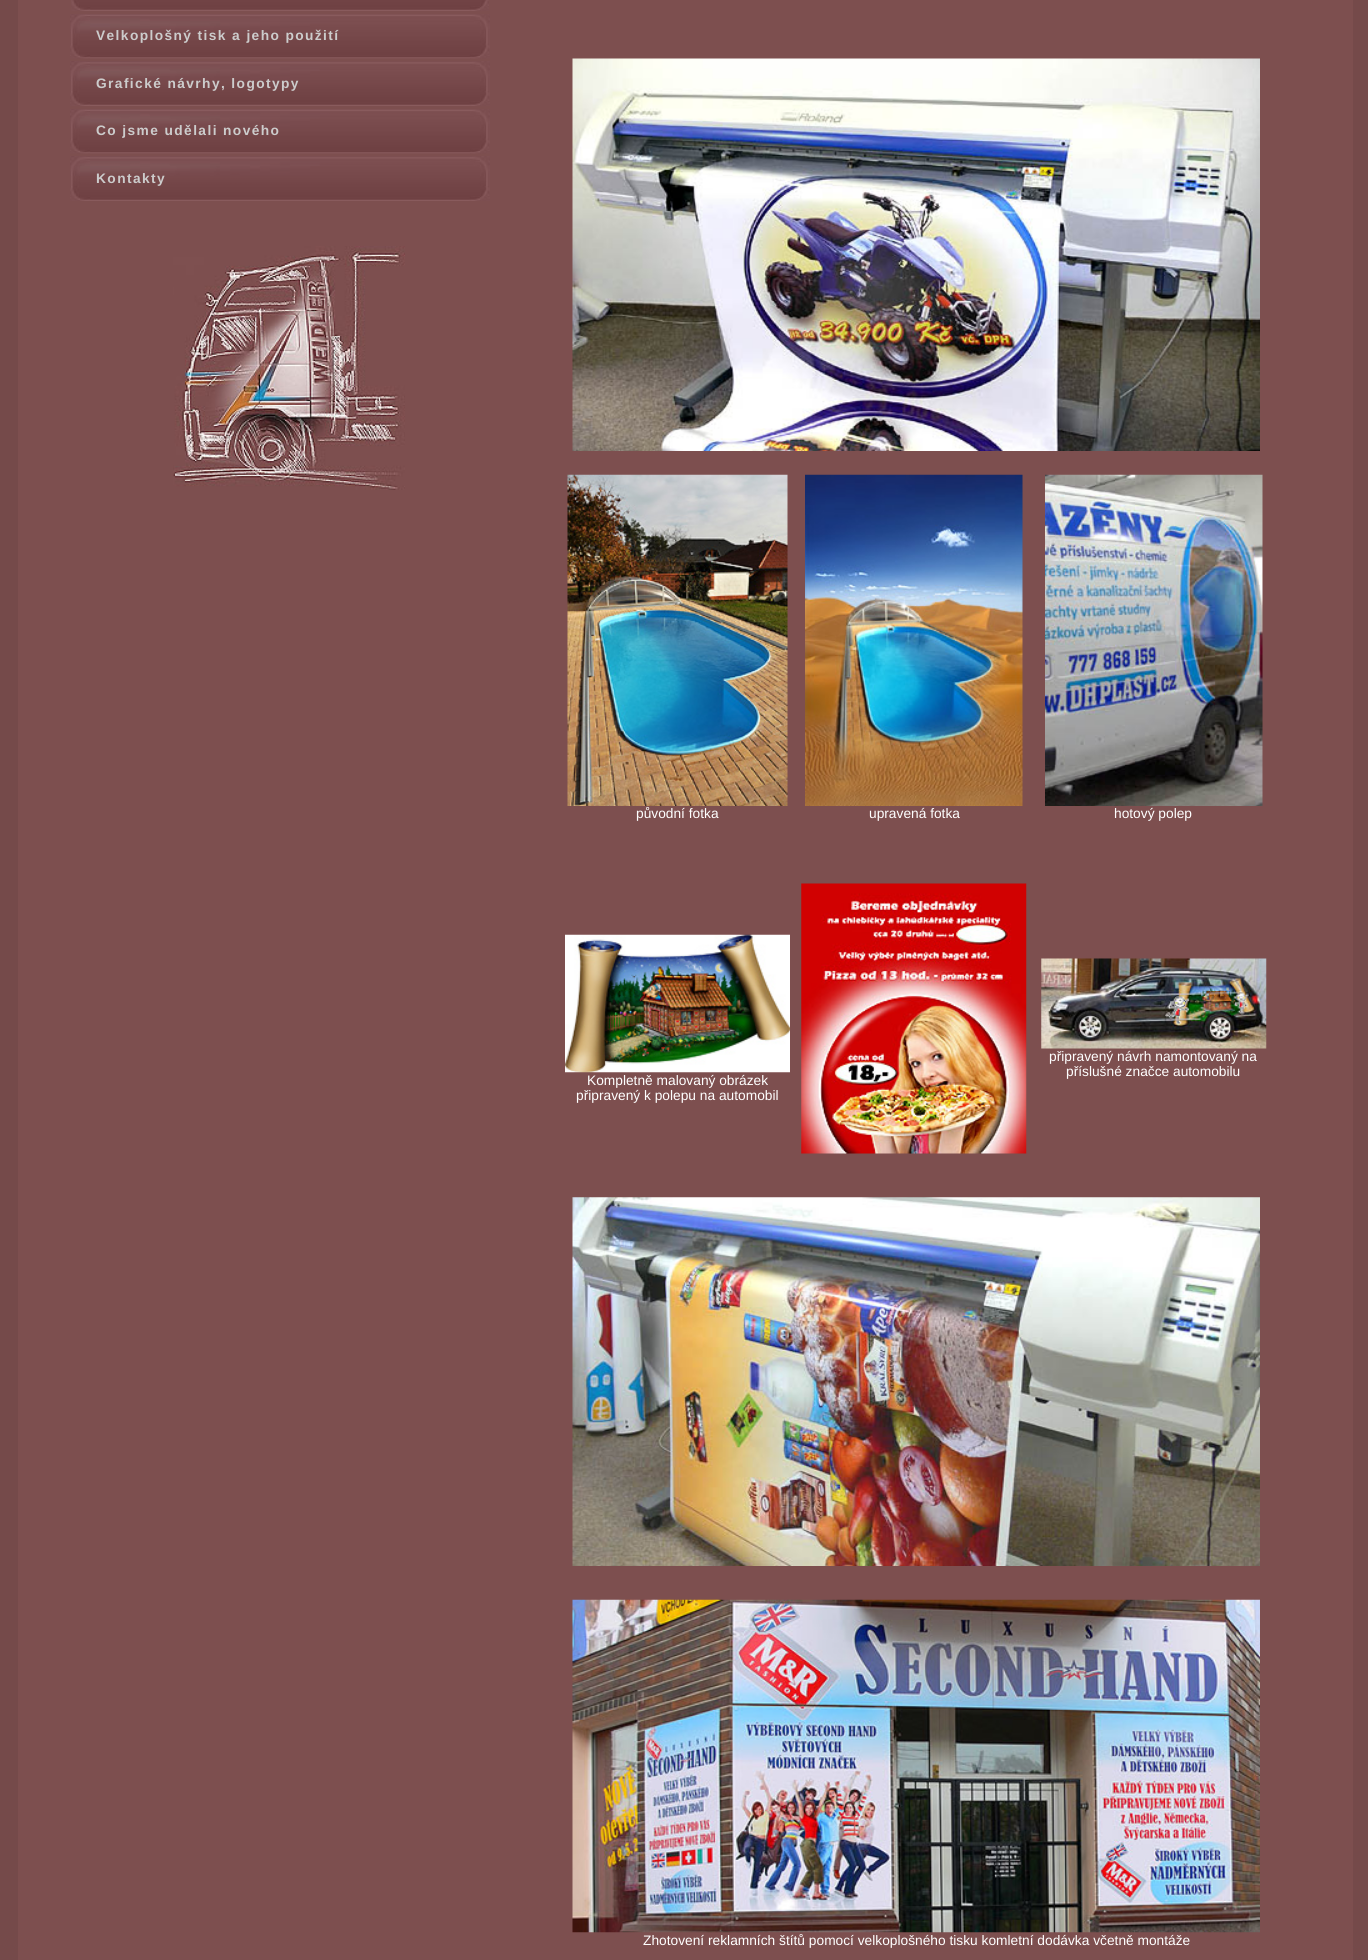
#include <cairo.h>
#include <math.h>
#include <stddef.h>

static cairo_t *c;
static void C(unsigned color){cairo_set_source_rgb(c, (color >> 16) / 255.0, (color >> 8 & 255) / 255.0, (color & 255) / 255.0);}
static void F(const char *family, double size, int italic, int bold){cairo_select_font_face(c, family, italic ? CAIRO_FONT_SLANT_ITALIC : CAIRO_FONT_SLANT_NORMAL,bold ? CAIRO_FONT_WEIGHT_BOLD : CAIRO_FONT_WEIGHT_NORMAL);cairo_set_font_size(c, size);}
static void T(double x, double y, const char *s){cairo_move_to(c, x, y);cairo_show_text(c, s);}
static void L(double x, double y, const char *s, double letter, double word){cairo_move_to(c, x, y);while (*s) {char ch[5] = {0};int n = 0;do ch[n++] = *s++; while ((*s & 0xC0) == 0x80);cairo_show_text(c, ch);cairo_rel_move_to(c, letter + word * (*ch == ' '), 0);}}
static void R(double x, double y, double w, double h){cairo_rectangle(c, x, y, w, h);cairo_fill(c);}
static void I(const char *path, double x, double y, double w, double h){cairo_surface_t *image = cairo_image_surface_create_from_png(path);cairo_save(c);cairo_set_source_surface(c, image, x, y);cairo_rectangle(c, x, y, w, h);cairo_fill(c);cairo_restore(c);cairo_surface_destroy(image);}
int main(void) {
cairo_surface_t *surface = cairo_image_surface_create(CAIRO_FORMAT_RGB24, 1368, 1960);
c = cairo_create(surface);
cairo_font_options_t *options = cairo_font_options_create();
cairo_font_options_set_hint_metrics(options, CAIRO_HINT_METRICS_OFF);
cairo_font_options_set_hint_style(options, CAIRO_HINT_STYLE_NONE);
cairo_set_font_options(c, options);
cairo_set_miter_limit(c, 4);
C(0x754a4a);
cairo_paint(c);
C(0x7d4f4f);
R(18,0,527,1555);
R(1289,0,64,1960);
I("1.png",71,0,418,11);
I("2.png",70,14,420,45);
F("Liberation Sans",13.75,0,1);
C(0xcccccc);
L(96,40,"Velkoplošný tisk a jeho použití",1.4,0);
I("3.png",70,61,420,45);
L(96,88,"Grafické návrhy, logotypy",1.4,0);
I("4.png",70,109,420,45);
L(96,135,"Co jsme udělali nového",1.4,0);
I("5.png",70,156,420,45);
L(96,183,"Kontakty",1.4,0);
I("6.png",173,246,232,244);
C(0x7d4f4f);
R(545,0,744,1960);
I("7.png",572,58,688,393);
I("8.png",567,474,221,332);
F("Liberation Sans",13.75,0,0);
C(0xffffff);
T(636,818,"původní fotka");
I("9.png",805,474,218,332);
T(869,818,"upravená fotka");
I("10.png",1045,474,218,332);
T(1114,818,"hotový polep");
I("11.png",801,883,226,271);
I("12.png",1041,958,226,91);
T(1049,1061,"připravený návrh namontovaný na");
T(1066,1076,"příslušné značce automobilu");
I("13.png",565,934,225,139);
T(587,1085,"Kompletně malovaný obrázek");
T(576,1100,"připravený k polepu na automobil");
I("14.png",572,1197,688,369);
I("15.png",572,1599,688,334);
T(643,1945,"Zhotovení reklamních štítů pomocí velkoplošného tisku komletní dodávka včetně montáže");
C(0x7d4f4f);
R(18,1555,527,405);
cairo_surface_write_to_png(surface, "o.png");
cairo_font_options_destroy(options);
cairo_destroy(c);
cairo_surface_destroy(surface);
return 0;
}
